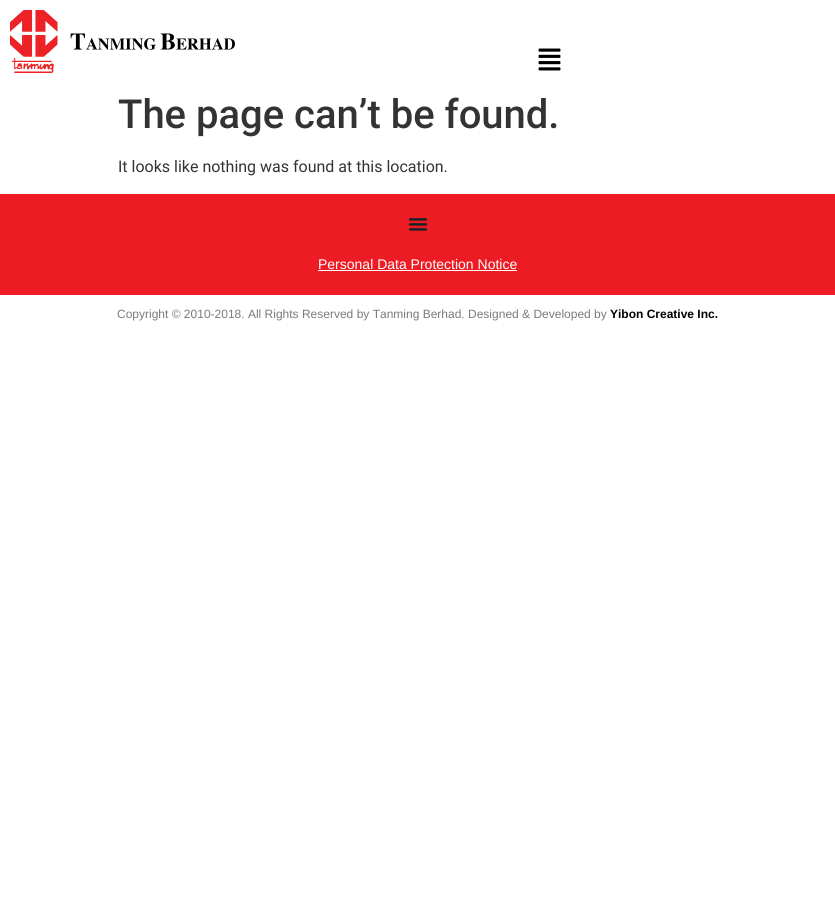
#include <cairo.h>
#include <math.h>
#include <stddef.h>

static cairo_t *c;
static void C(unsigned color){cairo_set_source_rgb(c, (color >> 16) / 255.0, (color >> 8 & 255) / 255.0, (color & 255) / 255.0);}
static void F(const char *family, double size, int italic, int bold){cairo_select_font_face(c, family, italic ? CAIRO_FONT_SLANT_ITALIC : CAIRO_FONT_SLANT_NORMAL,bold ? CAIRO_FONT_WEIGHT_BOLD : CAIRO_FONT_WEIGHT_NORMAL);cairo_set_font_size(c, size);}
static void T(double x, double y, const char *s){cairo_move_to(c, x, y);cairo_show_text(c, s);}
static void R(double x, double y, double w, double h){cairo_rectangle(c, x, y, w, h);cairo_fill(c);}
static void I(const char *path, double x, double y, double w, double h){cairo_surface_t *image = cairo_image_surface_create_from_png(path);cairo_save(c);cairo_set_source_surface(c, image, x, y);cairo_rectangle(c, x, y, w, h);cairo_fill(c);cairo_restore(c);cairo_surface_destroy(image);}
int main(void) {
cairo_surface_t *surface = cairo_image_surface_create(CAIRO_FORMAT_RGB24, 835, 905);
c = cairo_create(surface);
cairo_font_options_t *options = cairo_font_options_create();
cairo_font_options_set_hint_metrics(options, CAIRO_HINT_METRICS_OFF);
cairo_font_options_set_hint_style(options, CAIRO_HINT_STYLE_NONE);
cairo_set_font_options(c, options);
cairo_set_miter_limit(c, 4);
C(0xffffff);
cairo_paint(c);
I("1.png",10,10,225,63);
I("2.png",538,48,23,23);
F("Roboto Medium",40,0,0);
C(0x333333);
T(118,128,"The page can’t be found.");
F("Roboto",16,0,0);
T(118,172,"It looks like nothing was found at this location.");
C(0xed1c24);
R(0,194,835,101);
I("3.png",408,218,20,13);
F("Liberation Sans",14,0,0);
C(0xffffff);
T(318,269,"Personal Data Protection Notice");
R(318,270,199,1);
F("Liberation Sans",12,0,0);
C(0x7a7a7a);
T(117,318,"Copyright © 2010-2018. All Rights Reserved by Tanming Berhad. Designed & Developed by");
F("Liberation Sans",12,0,1);
C(0x000000);
T(610,318,"Yibon Creative Inc.");
cairo_surface_write_to_png(surface, "o.png");
cairo_font_options_destroy(options);
cairo_destroy(c);
cairo_surface_destroy(surface);
return 0;
}
